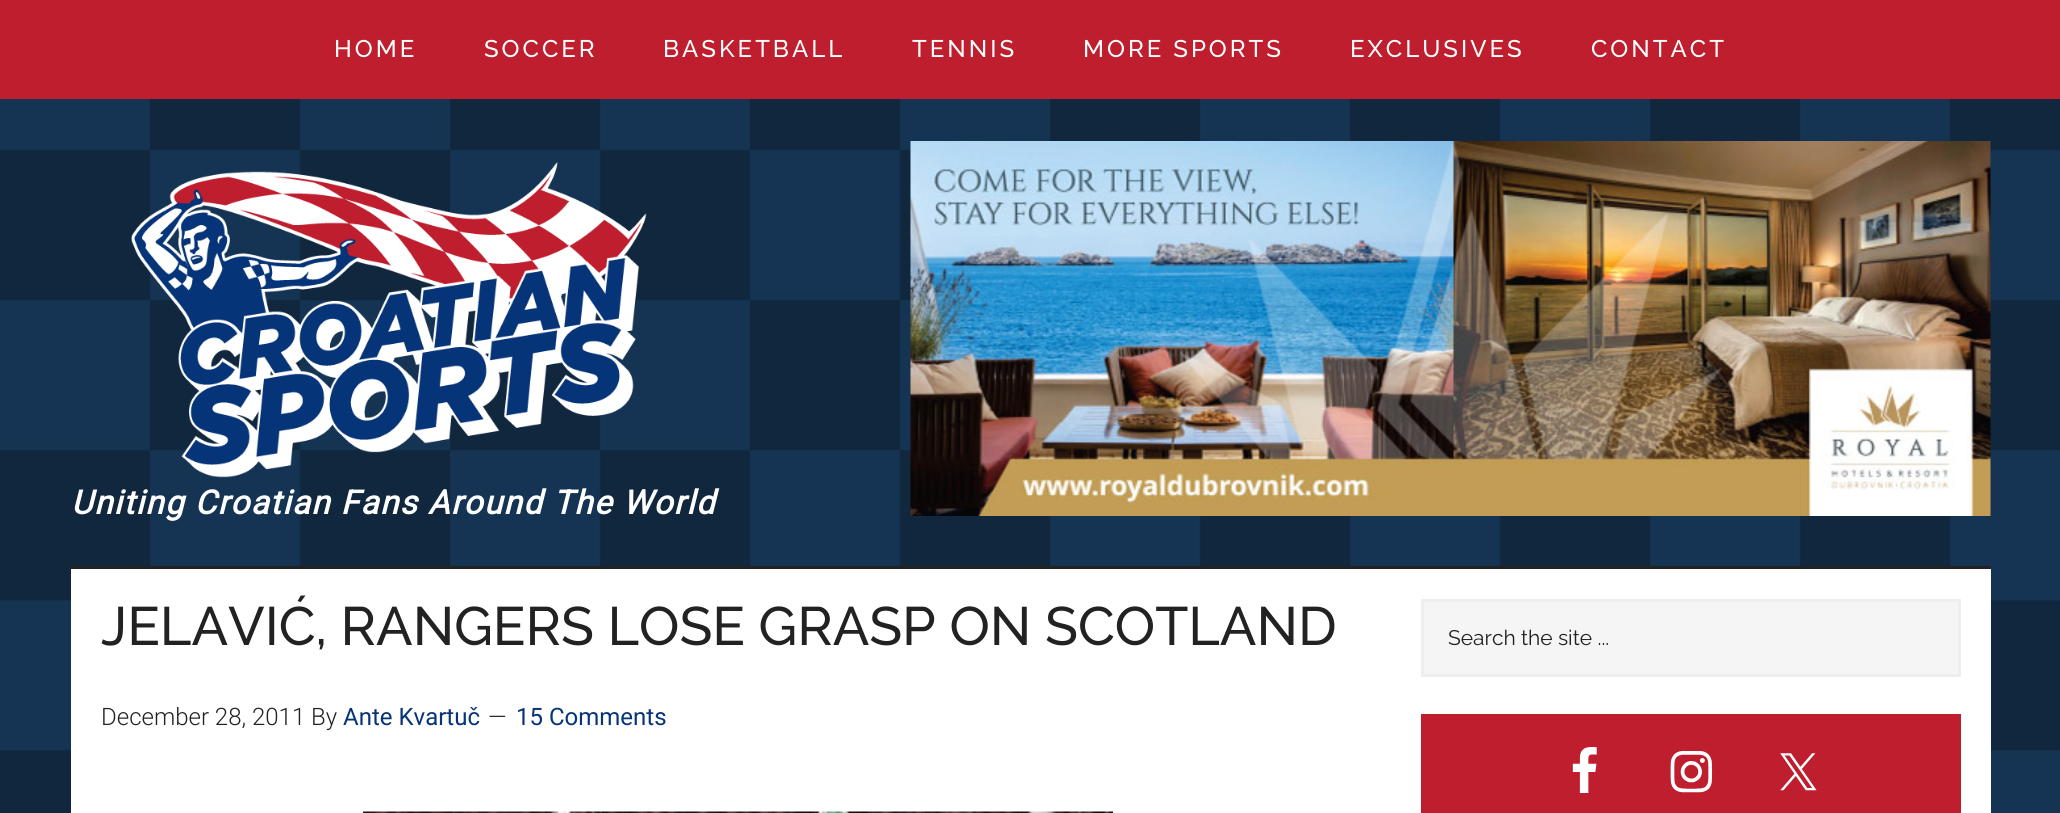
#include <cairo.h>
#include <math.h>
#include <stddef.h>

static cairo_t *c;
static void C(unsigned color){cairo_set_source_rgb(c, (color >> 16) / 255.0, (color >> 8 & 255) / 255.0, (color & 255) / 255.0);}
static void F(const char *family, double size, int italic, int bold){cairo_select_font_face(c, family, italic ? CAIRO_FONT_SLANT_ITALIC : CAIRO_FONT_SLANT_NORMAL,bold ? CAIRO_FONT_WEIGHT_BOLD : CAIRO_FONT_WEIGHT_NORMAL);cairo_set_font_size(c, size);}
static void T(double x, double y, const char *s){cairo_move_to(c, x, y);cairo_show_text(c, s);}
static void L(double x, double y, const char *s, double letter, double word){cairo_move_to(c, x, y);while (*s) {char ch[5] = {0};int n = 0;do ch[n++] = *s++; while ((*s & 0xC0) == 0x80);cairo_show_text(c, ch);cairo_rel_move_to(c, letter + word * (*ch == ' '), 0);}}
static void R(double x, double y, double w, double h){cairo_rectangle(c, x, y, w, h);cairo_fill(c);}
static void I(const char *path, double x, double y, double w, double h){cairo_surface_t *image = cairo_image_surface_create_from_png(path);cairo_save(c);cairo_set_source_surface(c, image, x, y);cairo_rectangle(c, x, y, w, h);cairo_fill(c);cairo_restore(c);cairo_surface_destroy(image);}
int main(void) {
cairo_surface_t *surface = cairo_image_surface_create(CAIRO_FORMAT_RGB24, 2060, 813);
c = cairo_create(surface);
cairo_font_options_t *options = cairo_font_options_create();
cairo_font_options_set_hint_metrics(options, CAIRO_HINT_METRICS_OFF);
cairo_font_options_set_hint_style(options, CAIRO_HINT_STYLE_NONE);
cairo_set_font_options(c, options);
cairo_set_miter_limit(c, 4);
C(0xffffff);
cairo_paint(c);
I("1.png",0,99,2060,714);
C(0xbf1e2e);
R(0,0,2060,99);
F("Raleway Medium",24,0,0);
C(0xffffff);
L(334,57,"HOME",3,0);
L(484,57,"SOCCER",3,0);
L(663,57,"BASKETBALL",3,0);
L(912,57,"TENNIS",3,0);
L(1083,57,"MORE SPORTS",3,0);
L(1350,57,"EXCLUSIVES",3,0);
L(1591,57,"CONTACT",3,0);
C(0x222222);
R(71,566,1920,3);
I("2.png",131,162,516,316);
F("Roboto",33,1,1);
C(0xffffff);
L(71,514,"Uniting Croatian Fans Around The World",1.5,0);
I("3.png",910,141,1081,375);
R(71,569,1920,244);
F("Raleway Medium",54,0,0);
C(0x222222);
T(101,645,"JELAVIĆ, RANGERS LOSE GRASP ON SCOTLAND");
F("Roboto Light",24,0,0);
T(101,725,"December 28, 2011 By");
F("Roboto",24,0,0);
C(0x063478);
T(343,725,"Ante Kvartuč");
F("Roboto Light",24,0,0);
C(0x222222);
T(488,725,"—");
F("Roboto",24,0,0);
C(0x063478);
T(516,725,"15 Comments");
I("4.png",363,811,750,2);
C(0xf5f5f5);
cairo_rectangle(c,1422.5,600.5,537,75);
cairo_fill_preserve(c);
C(0xeeeeee);
cairo_set_line_width(c,3);
cairo_stroke(c);
F("Raleway",21,0,0);
C(0x222222);
T(1448,645,"Search the site ...");
C(0xbf1e2e);
R(1421,714,540,99);
I("5.png",1572,747,25,46);
I("6.png",1670,751,43,42);
I("7.png",1780,753,37,38);
cairo_surface_write_to_png(surface, "o.png");
cairo_font_options_destroy(options);
cairo_destroy(c);
cairo_surface_destroy(surface);
return 0;
}
